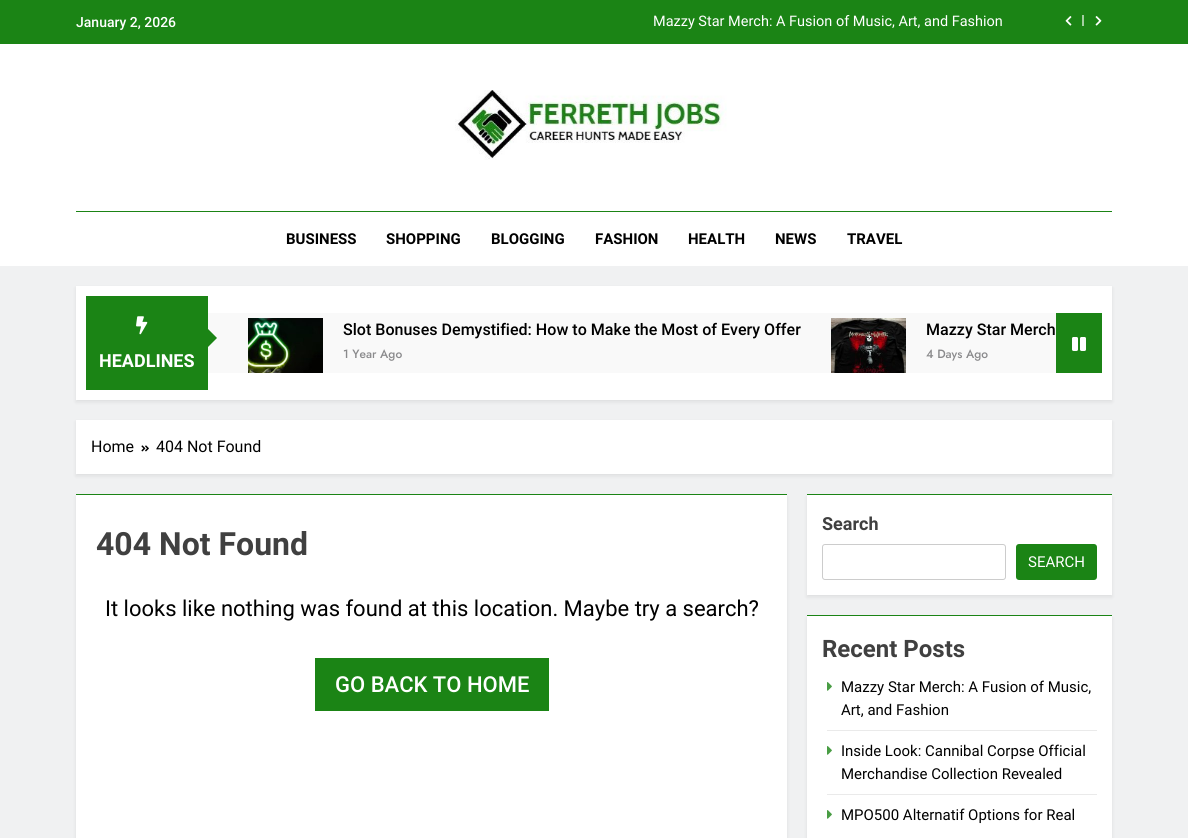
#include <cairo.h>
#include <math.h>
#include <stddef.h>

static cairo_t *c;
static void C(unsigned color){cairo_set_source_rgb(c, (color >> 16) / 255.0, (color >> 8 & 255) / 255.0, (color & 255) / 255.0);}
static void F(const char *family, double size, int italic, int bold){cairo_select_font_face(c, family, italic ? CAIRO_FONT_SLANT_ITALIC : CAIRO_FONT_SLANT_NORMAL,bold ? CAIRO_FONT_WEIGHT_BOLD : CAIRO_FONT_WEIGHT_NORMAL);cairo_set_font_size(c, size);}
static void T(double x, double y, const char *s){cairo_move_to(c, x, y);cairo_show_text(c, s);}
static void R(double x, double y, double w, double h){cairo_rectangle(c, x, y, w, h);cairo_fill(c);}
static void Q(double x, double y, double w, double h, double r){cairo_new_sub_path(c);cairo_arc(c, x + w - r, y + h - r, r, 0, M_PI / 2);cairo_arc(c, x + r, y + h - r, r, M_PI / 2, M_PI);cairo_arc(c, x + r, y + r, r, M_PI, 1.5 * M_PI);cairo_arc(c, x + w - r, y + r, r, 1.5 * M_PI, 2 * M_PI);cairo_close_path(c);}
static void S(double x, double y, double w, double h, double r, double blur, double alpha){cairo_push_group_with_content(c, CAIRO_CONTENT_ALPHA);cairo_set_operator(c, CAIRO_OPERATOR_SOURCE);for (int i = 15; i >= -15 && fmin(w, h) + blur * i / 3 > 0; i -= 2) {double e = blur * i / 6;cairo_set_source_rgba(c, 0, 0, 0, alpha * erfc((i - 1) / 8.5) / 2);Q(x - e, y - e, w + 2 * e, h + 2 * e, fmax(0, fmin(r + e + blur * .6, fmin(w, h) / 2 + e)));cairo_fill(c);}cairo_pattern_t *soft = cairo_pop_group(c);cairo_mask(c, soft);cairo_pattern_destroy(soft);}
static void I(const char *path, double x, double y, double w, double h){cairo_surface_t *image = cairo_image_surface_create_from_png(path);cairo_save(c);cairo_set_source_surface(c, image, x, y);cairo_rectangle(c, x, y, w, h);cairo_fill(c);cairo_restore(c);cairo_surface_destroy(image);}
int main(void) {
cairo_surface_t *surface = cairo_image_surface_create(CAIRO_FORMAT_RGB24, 1188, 838);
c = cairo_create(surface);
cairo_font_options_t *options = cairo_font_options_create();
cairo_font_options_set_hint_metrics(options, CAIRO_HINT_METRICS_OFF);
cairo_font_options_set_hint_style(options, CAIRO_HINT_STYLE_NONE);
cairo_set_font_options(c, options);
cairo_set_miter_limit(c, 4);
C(0xf0f1f2);
cairo_paint(c);
C(0x1b8415);
R(0,0,1188,44);
F("Roboto Medium",14,0,0);
C(0xffffff);
T(76,27,"January 2, 2026");
F("Roboto",14.5,0,0);
T(653,26,"Mazzy Star Merch: A Fusion of Music, Art, and Fashion");
I("1.png",1065,16,7,10);
C(0xa4cea1);
R(1082,15,2,11);
I("2.png",1095,16,7,10);
C(0xffffff);
R(0,44,1188,222);
I("3.png",455,90,272,70);
C(0x1b8415);
R(76,211,1036,1);
F("Roboto",15,0,1);
C(0x000000);
T(286,244,"BUSINESS");
T(386,244,"SHOPPING");
T(491,244,"BLOGGING");
T(595,244,"FASHION");
T(688,244,"HEALTH");
T(775,244,"NEWS");
T(847,244,"TRAVEL");
C(0x000000);
S(76,288,1036,114,0,2,.08);
C(0xffffff);
R(76,286,1036,114);
C(0x1b8415);
R(86,296,122,94);
I("4.png",136,316,12,19);
C(0xf9f9f9);
R(208,313,848,60);
C(0x1b8415);
cairo_new_path(c);
cairo_move_to(c,207,348);
cairo_line_to(c,207,328);
cairo_line_to(c,217,338);
cairo_close_path(c);
cairo_fill(c);
F("Roboto",18,0,1);
C(0xffffff);
T(99,367,"HEADLINES");
I("5.png",248,318,75,55);
F("Roboto Medium",16.05,0,0);
C(0x000000);
T(343,335,"Slot Bonuses Demystified: How to Make the Most of Every Offer");
F("Jost Medium",12,0,0);
C(0x8a8a8c);
T(343,358,"1 Year Ago");
I("6.png",831,318,75,55);
F("Roboto Medium",16.05,0,0);
C(0x000000);
T(926,335,"Mazzy Star Merch");
F("Jost Medium",12,0,0);
C(0x8a8a8c);
T(926,358,"4 Days Ago");
C(0x1b8415);
R(1056,313,46,60);
I("7.png",1072,337,14,14);
C(0x000000);
S(76,422,1036,54,0,2,.08);
C(0xffffff);
R(76,420,1036,54);
F("Roboto",16,0,0);
C(0x000000);
T(91,452,"Home");
I("8.png",141,445,8,7);
T(156,452,"404 Not Found");
C(0x000000);
S(76,497,711,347,0,2,.08);
C(0xffffff);
R(76,495,711,343);
C(0x1b8415);
R(76,494,711,1);
F("Roboto",32,0,1);
C(0x404040);
T(96,555,"404 Not Found");
F("Roboto",22,0,0);
C(0x000000);
T(105,616,"It looks like nothing was found at this location. Maybe try a search?");
C(0x1b8415);
R(315,658,234,53);
F("Roboto Medium",22,0,0);
C(0xffffff);
T(335,692,"GO BACK TO HOME");
C(0x000000);
S(807,497,305,100,0,2,.08);
C(0xffffff);
R(807,495,305,100);
C(0x1b8415);
R(807,494,305,1);
F("Roboto",18,0,1);
C(0x404040);
T(822,530,"Search");
Q(822.5,544.5,183,35,2.5);
C(0xcccccc);
cairo_set_line_width(c,1);
cairo_stroke(c);
C(0x1b8415);
Q(1016,544,81,36,3);
cairo_fill(c);
F("Roboto",15,0,0);
C(0xffffff);
T(1028,567,"SEARCH");
C(0x000000);
S(807,618,305,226,0,2,.08);
C(0xffffff);
R(807,616,305,222);
C(0x1b8415);
R(807,615,305,1);
F("Roboto",24,0,1);
C(0x404040);
T(822,657,"Recent Posts");
C(0xeaeaea);
R(827,730,270,1);
I("9.png",827,682,5,9);
F("Roboto",15,0,0);
C(0x000000);
T(841,692,"Mazzy Star Merch: A Fusion of Music,");
T(841,715,"Art, and Fashion");
C(0xeaeaea);
R(827,794,270,1);
I("9.png",827,746,5,9);
C(0x000000);
T(841,756,"Inside Look: Cannibal Corpse Official");
T(841,779,"Merchandise Collection Revealed");
I("9.png",827,810,5,9);
T(841,820,"MPO500 Alternatif Options for Real");
cairo_surface_write_to_png(surface, "o.png");
cairo_font_options_destroy(options);
cairo_destroy(c);
cairo_surface_destroy(surface);
return 0;
}
